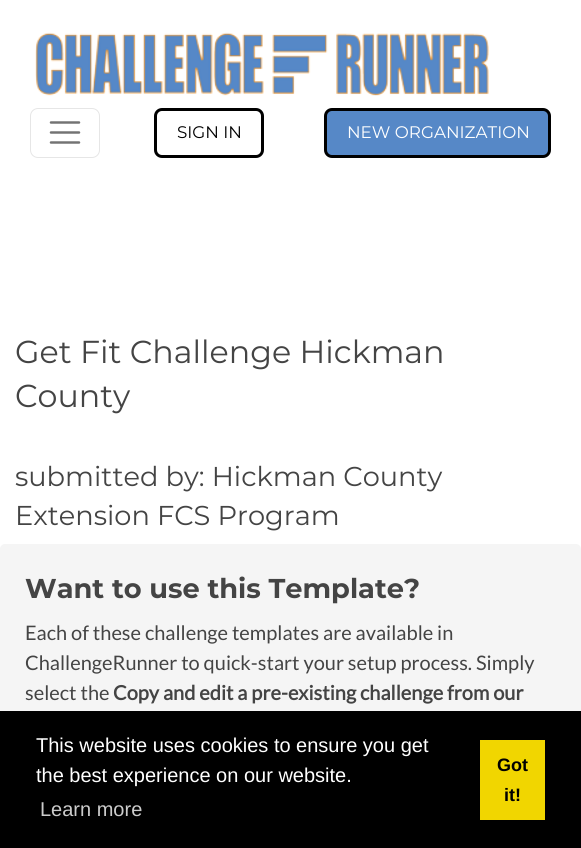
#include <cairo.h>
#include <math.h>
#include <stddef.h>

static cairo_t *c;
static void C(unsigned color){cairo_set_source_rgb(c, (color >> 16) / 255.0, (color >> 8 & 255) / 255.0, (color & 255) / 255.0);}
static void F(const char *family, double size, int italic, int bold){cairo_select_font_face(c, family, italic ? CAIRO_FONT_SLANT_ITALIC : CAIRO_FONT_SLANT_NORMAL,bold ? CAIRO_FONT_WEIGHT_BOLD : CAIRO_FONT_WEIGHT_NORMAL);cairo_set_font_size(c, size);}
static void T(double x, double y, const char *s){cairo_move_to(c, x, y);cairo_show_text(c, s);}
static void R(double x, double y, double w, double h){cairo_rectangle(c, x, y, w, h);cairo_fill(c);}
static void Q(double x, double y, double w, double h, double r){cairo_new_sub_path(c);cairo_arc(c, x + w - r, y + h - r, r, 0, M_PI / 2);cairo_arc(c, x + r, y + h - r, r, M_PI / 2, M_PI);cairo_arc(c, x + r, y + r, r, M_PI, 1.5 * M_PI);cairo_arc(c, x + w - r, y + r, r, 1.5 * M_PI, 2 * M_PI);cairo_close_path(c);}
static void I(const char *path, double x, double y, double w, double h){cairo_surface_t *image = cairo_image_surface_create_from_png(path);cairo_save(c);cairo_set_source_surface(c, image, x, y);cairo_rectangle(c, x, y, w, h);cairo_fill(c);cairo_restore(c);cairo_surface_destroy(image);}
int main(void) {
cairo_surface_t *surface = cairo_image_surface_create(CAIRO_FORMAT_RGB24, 581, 848);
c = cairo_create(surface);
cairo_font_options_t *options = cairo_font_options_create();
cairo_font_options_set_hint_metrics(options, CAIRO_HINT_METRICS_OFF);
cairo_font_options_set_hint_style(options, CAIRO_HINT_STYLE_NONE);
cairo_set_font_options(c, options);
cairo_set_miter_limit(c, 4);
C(0xffffff);
cairo_paint(c);
I("1.png",35,32,454,64);
Q(30.5,108.5,69,49,7.5);
C(0xe6e6e6);
cairo_set_line_width(c,1);
cairo_stroke(c);
cairo_new_path(c);
cairo_move_to(c,51,122.5);
cairo_line_to(c,79,122.5);
cairo_move_to(c,51,132.5);
cairo_line_to(c,79,132.5);
cairo_move_to(c,51,142.5);
cairo_line_to(c,79,142.5);
C(0x737373);
cairo_set_line_width(c,2.5);
cairo_set_line_cap(c,CAIRO_LINE_CAP_ROUND);
cairo_stroke(c);
Q(155.5,109.5,107,47,6.5);
C(0x000000);
cairo_set_line_width(c,3);
cairo_set_line_cap(c,CAIRO_LINE_CAP_BUTT);
cairo_stroke(c);
F("Montserrat",16.75,0,0);
T(177,138,"SIGN IN");
C(0x5688c7);
Q(325.5,109.5,224,47,6.5);
cairo_fill_preserve(c);
C(0x000000);
cairo_stroke(c);
C(0xffffff);
T(347,138,"NEW ORGANIZATION");
F("Montserrat",31.75,0,0);
C(0x444444);
T(15,363,"Get Fit Challenge Hickman");
T(15,407,"County");
F("Montserrat",27.25,0,0);
T(15,486,"submitted by: Hickman County");
T(15,525,"Extension FCS Program");
C(0xf5f5f5);
Q(0,544,581,219,5);
cairo_fill(c);
F("Montserrat",27.25,0,1);
C(0x444444);
T(25,598,"Want to use this Template?");
F("Lato",20,0,0);
T(25,640,"Each of these challenge templates are available in");
T(25,670,"ChallengeRunner to quick-start your setup process. Simply");
T(25,700,"select the");
F("Lato",20,0,1);
T(113,700,"Copy and edit a pre-existing challenge from our");
C(0x000000);
R(0,711,581,137);
F("Liberation Sans",20,0,0);
C(0xffffff);
T(36,752,"This website uses cookies to ensure you get");
T(36,782,"the best experience on our website.");
C(0xcccccc);
T(40,816,"Learn more");
C(0xf1d600);
R(480,740,65,80);
F("Liberation Sans",18,0,1);
C(0x000000);
T(497,771,"Got");
T(504,801,"it!");
cairo_surface_write_to_png(surface, "o.png");
cairo_font_options_destroy(options);
cairo_destroy(c);
cairo_surface_destroy(surface);
return 0;
}
